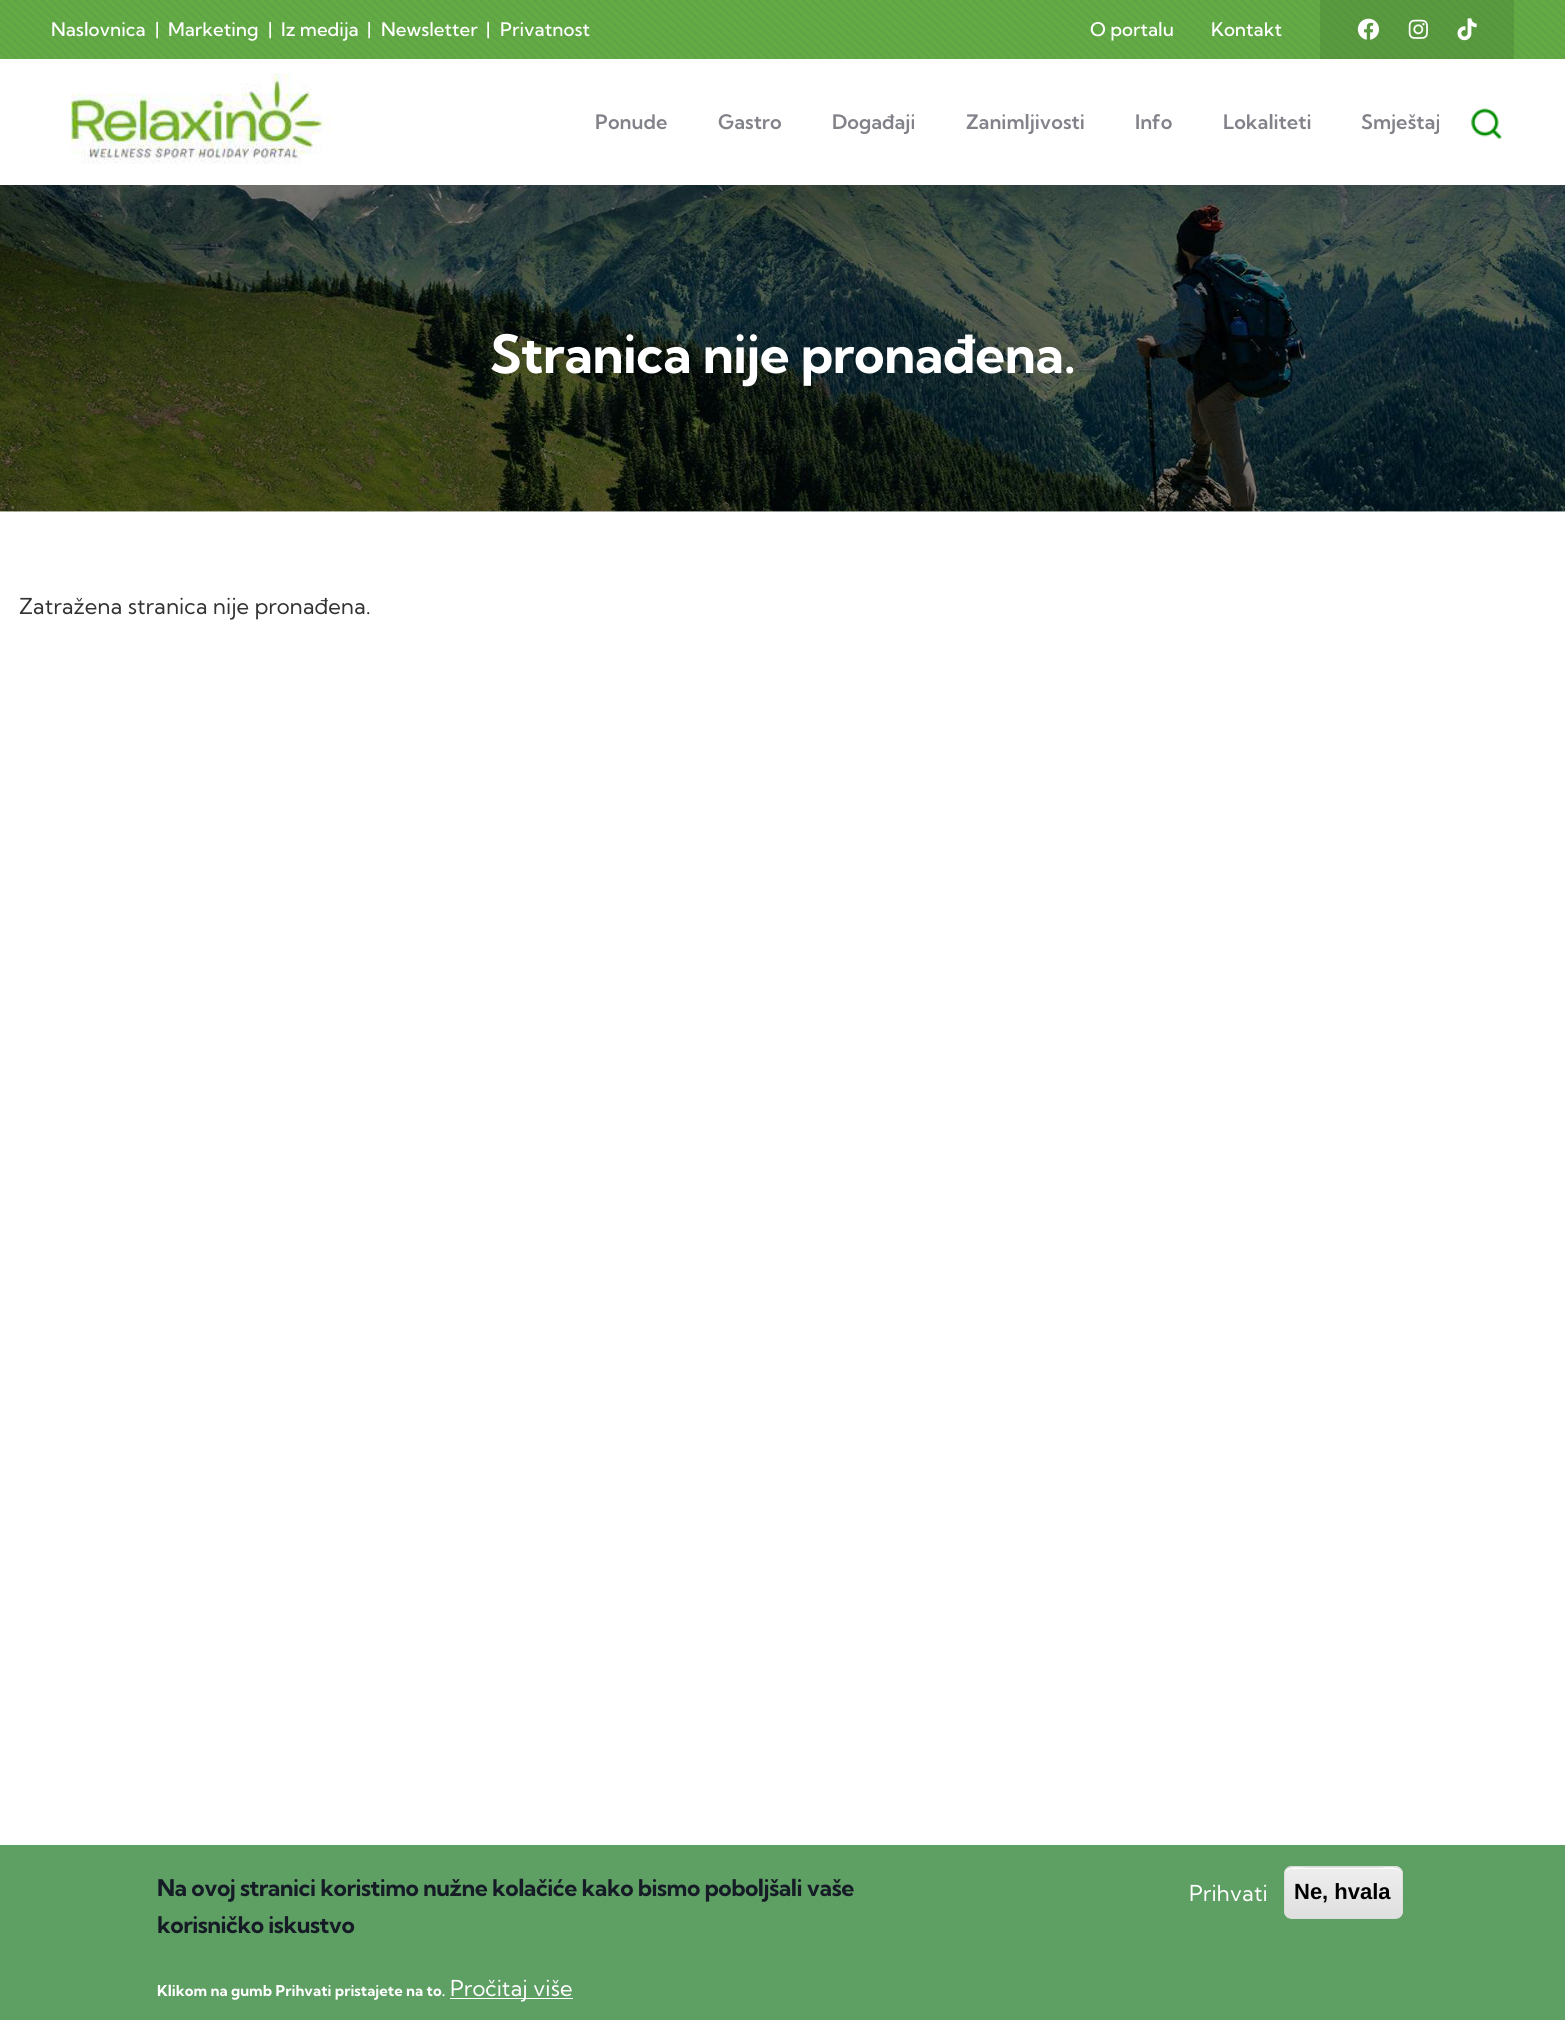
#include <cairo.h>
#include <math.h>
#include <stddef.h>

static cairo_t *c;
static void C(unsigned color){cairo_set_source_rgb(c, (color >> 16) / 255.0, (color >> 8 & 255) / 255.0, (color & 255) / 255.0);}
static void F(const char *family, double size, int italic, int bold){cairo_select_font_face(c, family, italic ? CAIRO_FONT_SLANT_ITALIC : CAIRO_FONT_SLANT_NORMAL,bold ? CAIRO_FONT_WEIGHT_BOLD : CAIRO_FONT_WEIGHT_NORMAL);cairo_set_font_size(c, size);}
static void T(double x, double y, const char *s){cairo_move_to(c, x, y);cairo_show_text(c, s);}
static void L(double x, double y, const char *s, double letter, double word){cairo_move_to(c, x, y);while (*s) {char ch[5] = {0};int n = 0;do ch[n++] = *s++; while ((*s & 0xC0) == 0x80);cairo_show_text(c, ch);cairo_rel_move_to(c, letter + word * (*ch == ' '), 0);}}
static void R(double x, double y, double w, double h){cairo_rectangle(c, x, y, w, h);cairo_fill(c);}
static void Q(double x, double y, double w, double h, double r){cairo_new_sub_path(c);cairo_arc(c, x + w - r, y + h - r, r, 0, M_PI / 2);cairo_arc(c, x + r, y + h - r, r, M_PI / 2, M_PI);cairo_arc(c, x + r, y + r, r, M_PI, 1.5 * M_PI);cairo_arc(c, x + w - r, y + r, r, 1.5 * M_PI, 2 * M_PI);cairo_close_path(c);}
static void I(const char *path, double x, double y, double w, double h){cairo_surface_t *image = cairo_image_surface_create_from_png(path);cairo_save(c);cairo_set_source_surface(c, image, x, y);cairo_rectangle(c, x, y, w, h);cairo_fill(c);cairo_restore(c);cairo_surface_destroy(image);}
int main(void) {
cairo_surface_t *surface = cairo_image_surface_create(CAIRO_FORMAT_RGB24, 1565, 2020);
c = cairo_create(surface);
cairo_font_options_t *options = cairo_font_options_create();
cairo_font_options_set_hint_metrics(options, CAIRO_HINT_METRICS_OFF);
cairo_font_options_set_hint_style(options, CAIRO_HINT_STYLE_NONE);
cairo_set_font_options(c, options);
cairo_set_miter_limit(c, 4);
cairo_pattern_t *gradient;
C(0xffffff);
cairo_paint(c);
C(0x63ab45);
R(0,0,1565,59);
I("1.png",0,0,1565,59);
F("Kumbh Sans Medium",18.75,0,0);
C(0xffffff);
T(51,36,"Naslovnica");
T(155,36,"|");
T(168,36,"Marketing");
T(268,36,"|");
T(281,36,"Iz medija");
T(367,36,"|");
T(381,36,"Newsletter");
T(486,36,"|");
T(500,36,"Privatnost");
T(1090,36,"O portalu");
T(1211,36,"Kontakt");
cairo_set_source_rgba(c,0,0,0,0.1);
R(1320,0,194,59);
I("2.png",1357,18,22,22);
I("3.png",1408,19,20,20);
I("4.png",1457,18,20,23);
I("5.png",71,73,260,91);
F("Kumbh Sans SemiBold",20,0,0);
C(0x82828a);
T(595,129,"Ponude");
T(718,129,"Gastro");
T(832,129,"Događaji");
T(966,129,"Zanimljivosti");
T(1135,129,"Info");
T(1223,129,"Lokaliteti");
T(1361,129,"Smještaj");
I("6.png",1471,108,31,31);
I("7.png",0,511,1565,1);
I("8.png",0,185,1565,327);
F("Kumbh Sans",52.5,0,1);
C(0xffffff);
L(490,373,"Stranica nije pronađena.",-.5,0);
F("Kumbh Sans",22,0,0);
C(0x333333);
T(19,614,"Zatražena stranica nije pronađena.");
C(0x5e9f64);
R(0,1845,1565,175);
F("Kumbh Sans",23,0,1);
C(0x161c26);
L(157,1896,"Na ovoj stranici koristimo nužne kolačiće kako bismo poboljšali vaše",-.5,0);
L(157,1933,"korisničko iskustvo",-.5,0);
F("Kumbh Sans",15,0,1);
C(0xffffff);
T(157,1996,"Klikom na gumb Prihvati pristajete na to.");
R(450,1998,123,1);
F("Kumbh Sans",22,0,0);
T(450,1996,"Pročitaj više");
T(1189,1901,"Prihvati");
cairo_save(c);
Q(1284,1866,119,53,8);
cairo_clip(c);
gradient = cairo_pattern_create_linear(1343,1818,1343,1868);
cairo_pattern_add_color_stop_rgba(gradient,.05,0.929,0.929,0.929,1);
cairo_pattern_add_color_stop_rgba(gradient,1,0.875,0.875,0.875,1);
cairo_set_source(c,gradient);
cairo_pattern_destroy(gradient);
R(1284,1866,119,2);
gradient = cairo_pattern_create_linear(1343,1868,1343,1918);
cairo_pattern_add_color_stop_rgba(gradient,.05,0.929,0.929,0.929,1);
cairo_pattern_add_color_stop_rgba(gradient,1,0.875,0.875,0.875,1);
cairo_set_source(c,gradient);
cairo_pattern_destroy(gradient);
R(1284,1868,119,50);
cairo_restore(c);
cairo_new_path(c);
cairo_move_to(c,1291,1869);
cairo_line_to(c,1395,1869);
cairo_curve_to(c,1398,1869,1401,1872,1401,1875);
cairo_curve_to(c,1401,1864,1384,1868,1378,1868);
cairo_line_to(c,1308,1868);
cairo_curve_to(c,1302,1868,1285,1864,1285,1875);
cairo_curve_to(c,1285,1872,1288,1869,1291,1869);
cairo_close_path(c);
cairo_fill(c);
Q(1284.5,1866.5,118,52,7.5);
C(0xdcdcdc);
cairo_set_line_width(c,1);
cairo_stroke(c);
F("Liberation Sans",22,0,1);
C(0x000000);
T(1294,1899,"Ne, hvala");
cairo_surface_write_to_png(surface, "o.png");
cairo_font_options_destroy(options);
cairo_destroy(c);
cairo_surface_destroy(surface);
return 0;
}
